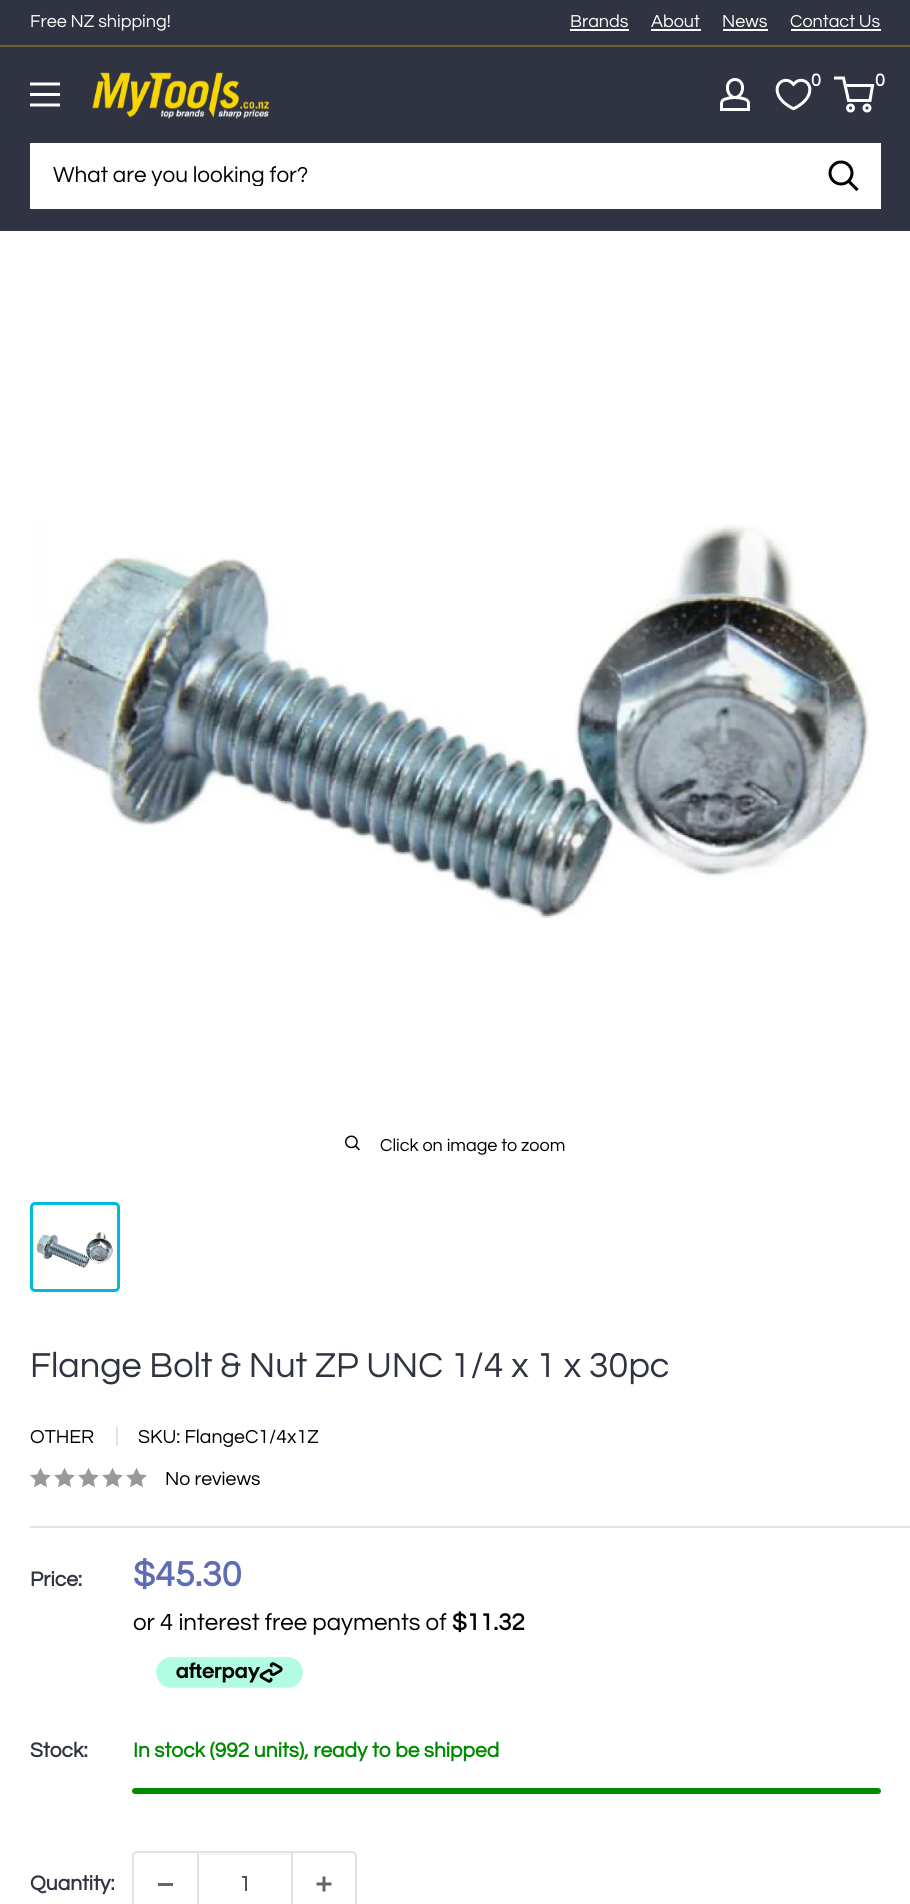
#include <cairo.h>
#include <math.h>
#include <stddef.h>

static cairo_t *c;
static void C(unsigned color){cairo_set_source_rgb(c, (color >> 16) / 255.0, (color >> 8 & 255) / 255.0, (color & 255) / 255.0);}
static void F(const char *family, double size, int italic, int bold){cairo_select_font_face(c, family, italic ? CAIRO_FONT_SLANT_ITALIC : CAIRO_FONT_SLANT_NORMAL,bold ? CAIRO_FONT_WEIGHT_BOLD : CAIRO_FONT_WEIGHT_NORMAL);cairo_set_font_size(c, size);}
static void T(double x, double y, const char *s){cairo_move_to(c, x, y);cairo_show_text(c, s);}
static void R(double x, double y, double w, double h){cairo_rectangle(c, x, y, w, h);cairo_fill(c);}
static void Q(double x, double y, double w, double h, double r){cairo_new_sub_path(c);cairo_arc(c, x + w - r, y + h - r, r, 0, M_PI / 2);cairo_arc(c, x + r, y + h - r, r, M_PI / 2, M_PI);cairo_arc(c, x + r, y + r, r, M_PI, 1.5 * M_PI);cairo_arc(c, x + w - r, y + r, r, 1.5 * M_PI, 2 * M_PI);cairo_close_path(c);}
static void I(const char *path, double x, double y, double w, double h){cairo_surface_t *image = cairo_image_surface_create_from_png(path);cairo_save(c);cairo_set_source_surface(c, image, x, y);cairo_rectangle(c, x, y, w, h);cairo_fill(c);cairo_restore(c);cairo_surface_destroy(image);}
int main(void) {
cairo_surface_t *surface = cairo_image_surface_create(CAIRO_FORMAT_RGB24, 910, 1904);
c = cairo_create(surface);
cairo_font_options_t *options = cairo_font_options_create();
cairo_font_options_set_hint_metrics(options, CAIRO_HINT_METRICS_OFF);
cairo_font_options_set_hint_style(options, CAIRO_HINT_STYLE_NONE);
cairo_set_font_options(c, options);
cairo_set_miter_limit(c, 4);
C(0x303341);
cairo_paint(c);
C(0x6e642e);
R(0,45,910,2);
F("Questrial",18,0,0);
C(0xffffff);
T(30,27,"Free NZ shipping!");
T(570,27,"Brands");
R(570,29,59,2);
T(651,27,"About");
R(651,29,50,2);
T(722,27,"News");
R(723,29,45,2);
T(790,27,"Contact Us");
R(791,29,90,2);
I("1.png",92,72,177,47);
I("2.png",720,78,30,33);
I("3.png",775,78,37,33);
F("Questrial",18,0,1);
T(811,86,"0");
cairo_new_path(c);
cairo_arc(c,850.5,108,3,0,2 * M_PI);
cairo_set_line_width(c,3);
cairo_stroke(c);
cairo_arc(c,867,108,3,0,2 * M_PI);
cairo_stroke(c);
cairo_new_path(c);
cairo_move_to(c,845,85.5);
cairo_line_to(c,872.5,85.5);
cairo_line_to(c,870,100.5);
cairo_line_to(c,848.5,100.5);
cairo_line_to(c,843.5,78);
cairo_line_to(c,834,78);
cairo_stroke(c);
T(875,86,"0");
I("4.png",30,82,30,25);
R(30,143,851,66);
cairo_save(c);
cairo_rectangle(c,53,164,730,22);
cairo_clip(c);
F("Questrial",22.5,0,0);
C(0x000000);
T(53,182,"What are you looking for?");
cairo_restore(c);
cairo_new_path(c);
cairo_move_to(c,856.5,189);
cairo_line_to(c,849,181.5);
C(0x000000);
cairo_set_line_cap(c,CAIRO_LINE_CAP_SQUARE);
cairo_stroke(c);
cairo_arc(c,841,173,11,0,2 * M_PI);
cairo_set_line_cap(c,CAIRO_LINE_CAP_BUTT);
cairo_stroke(c);
C(0xffffff);
R(0,231,910,1109);
I("5.png",33,523,838,396);
I("6.png",345,1135,15,16);
F("Questrial",18,0,0);
C(0x000000);
T(380,1151,"Click on image to zoom");
Q(31.5,1203.5,87,87,3.5);
C(0x00badb);
cairo_stroke(c);
I("7.png",36,1231,77,37);
C(0xffffff);
cairo_new_path(c);
cairo_move_to(c,0,1340);
cairo_line_to(c,0,1341);
cairo_line_to(c,910,1341);
cairo_line_to(c,910,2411);
cairo_line_to(c,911,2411);
cairo_line_to(c,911,1340);
cairo_close_path(c);
cairo_fill(c);
R(0,1341,910,563);
F("Questrial",36,0,0);
C(0x303341);
T(30,1377,"Flange Bolt & Nut ZP UNC 1/4 x 1 x 30pc");
F("Questrial",19.5,0,0);
C(0x000000);
T(30,1443,"OTHER");
C(0xe1e3e4);
R(116,1427,2,19);
C(0x000000);
T(138,1443,"SKU: FlangeC1/4x1Z");
I("8.png",30,1468,21,19);
I("8.png",54,1468,21,19);
I("8.png",78,1468,21,19);
I("8.png",102,1468,21,19);
I("8.png",126,1468,21,19);
T(165,1485,"No reviews");
C(0xe1e3e4);
R(30,1526,880,2);
F("Questrial",21,0,1);
C(0x303341);
T(30,1586,"Price:");
F("Questrial",36,0,1);
C(0x5e6db3);
T(133,1586,"$45.30");
F("Questrial",24.1,0,0);
C(0x000000);
T(133,1630,"or 4 interest free payments of");
F("Questrial",24.1,0,1);
T(452,1630,"$11.32");
I("9.png",156,1657,147,31);
F("Questrial",21,0,1);
C(0x303341);
T(30,1757,"Stock:");
C(0x008a00);
T(133,1757,"In stock (992 units), ready to be shipped");
Q(132,1788,749,6,3);
cairo_fill(c);
C(0x303341);
T(30,1890,"Quantity:");
Q(133,1852,223,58,4);
C(0xe1e3e4);
cairo_set_line_width(c,2);
cairo_stroke(c);
C(0x666666);
R(158,1883,15,3);
C(0xf3f4f4);
R(198,1853,93,2);
C(0xe1e3e4);
R(291,1853,2,51);
R(197,1853,2,51);
F("Questrial",22.5,0,0);
C(0x303341);
T(239,1891,"1");
I("10.png",316,1876,16,16);
cairo_surface_write_to_png(surface, "o.png");
cairo_font_options_destroy(options);
cairo_destroy(c);
cairo_surface_destroy(surface);
return 0;
}
